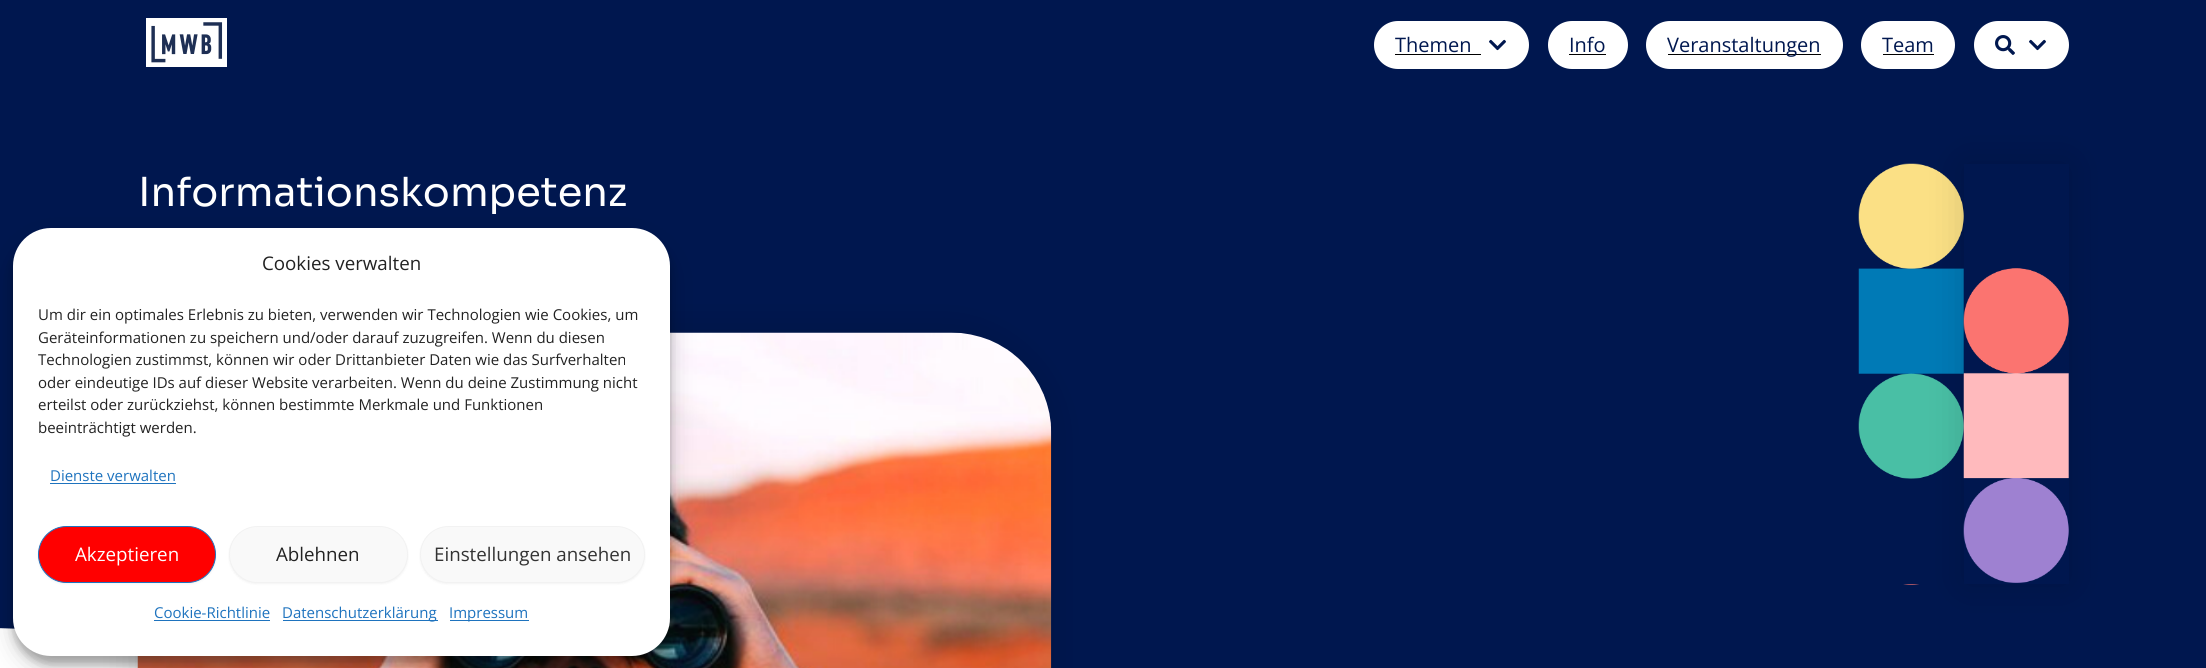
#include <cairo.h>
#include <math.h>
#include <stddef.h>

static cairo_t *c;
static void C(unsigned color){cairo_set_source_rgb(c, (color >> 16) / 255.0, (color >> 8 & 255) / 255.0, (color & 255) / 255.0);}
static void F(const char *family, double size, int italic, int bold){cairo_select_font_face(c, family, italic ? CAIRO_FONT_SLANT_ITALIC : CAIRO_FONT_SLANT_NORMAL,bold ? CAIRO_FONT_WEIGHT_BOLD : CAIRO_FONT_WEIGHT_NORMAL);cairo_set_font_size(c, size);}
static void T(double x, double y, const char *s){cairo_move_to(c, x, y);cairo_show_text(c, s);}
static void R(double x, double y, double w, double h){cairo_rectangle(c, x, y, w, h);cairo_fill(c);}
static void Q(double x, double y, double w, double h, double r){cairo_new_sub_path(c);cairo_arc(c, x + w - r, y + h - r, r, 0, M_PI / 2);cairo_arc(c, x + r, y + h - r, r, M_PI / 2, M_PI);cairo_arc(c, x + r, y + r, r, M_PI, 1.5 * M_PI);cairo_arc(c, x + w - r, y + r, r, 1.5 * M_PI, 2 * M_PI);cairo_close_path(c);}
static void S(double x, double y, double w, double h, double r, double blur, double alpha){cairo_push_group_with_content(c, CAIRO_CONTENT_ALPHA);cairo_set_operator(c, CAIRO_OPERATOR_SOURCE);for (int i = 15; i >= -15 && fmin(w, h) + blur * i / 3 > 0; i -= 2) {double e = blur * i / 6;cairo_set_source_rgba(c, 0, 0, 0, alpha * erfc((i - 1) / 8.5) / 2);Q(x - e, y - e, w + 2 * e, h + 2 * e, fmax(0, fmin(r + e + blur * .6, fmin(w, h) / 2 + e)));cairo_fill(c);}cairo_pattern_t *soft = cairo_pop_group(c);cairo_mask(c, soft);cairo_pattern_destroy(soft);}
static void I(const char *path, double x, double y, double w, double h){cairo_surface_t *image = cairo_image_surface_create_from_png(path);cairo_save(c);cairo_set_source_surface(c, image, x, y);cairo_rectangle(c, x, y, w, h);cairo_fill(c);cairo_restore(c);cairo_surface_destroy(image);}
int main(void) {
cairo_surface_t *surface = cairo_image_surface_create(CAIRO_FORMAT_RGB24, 2206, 668);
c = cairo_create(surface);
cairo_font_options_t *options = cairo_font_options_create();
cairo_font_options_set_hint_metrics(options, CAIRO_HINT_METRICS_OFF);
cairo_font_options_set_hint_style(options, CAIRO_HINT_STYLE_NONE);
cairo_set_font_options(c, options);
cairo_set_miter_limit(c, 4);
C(0x00174f);
cairo_paint(c);
I("1.png",146,18,81,49);
C(0xffffff);
Q(1375.5,22.5,152,45,22.5);
cairo_fill_preserve(c);
cairo_set_line_width(c,3);
cairo_stroke(c);
F("Open Sans",20,0,0);
C(0x00174f);
T(1395,52,"Themen");
C(0x000000);
R(1395,54,86,1);
I("2.png",1489,39,17,12);
C(0xffffff);
Q(1549.5,22.5,77,45,22.5);
cairo_fill_preserve(c);
cairo_stroke(c);
C(0x00174f);
T(1569,52,"Info");
C(0x000000);
R(1569,54,37,1);
C(0xffffff);
Q(1647.5,22.5,194,45,22.5);
cairo_fill_preserve(c);
cairo_stroke(c);
C(0x000000);
R(1668,54,153,1);
C(0x00174f);
T(1667,52,"Veranstaltungen");
C(0xffffff);
Q(1862.5,22.5,91,45,22.5);
cairo_fill_preserve(c);
cairo_stroke(c);
C(0x00174f);
T(1882,52,"Team");
C(0x000000);
R(1883,54,51,1);
C(0xffffff);
Q(1975.5,22.5,92,45,22.5);
cairo_fill_preserve(c);
cairo_stroke(c);
I("3.png",1995,35,20,20);
I("2.png",2029,39,17,12);
F("Sora",40,0,0);
T(138,206,"Informationskompetenz");
I("5.png",1858,163,106,422);
cairo_save(c);
cairo_set_fill_rule(c,CAIRO_FILL_RULE_EVEN_ODD);
cairo_new_path(c);
cairo_move_to(c,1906,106);
cairo_line_to(c,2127,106);
cairo_line_to(c,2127,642);
cairo_line_to(c,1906,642);
cairo_close_path(c);
cairo_move_to(c,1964,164);
cairo_line_to(c,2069,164);
cairo_line_to(c,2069,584);
cairo_line_to(c,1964,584);
cairo_close_path(c);
cairo_clip(c);
C(0x000000);
S(1964,164,105,420,0,19,.15);
cairo_restore(c);
I("4.png",1963,268,106,315);
cairo_new_path(c);
cairo_move_to(c,1387,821);
cairo_curve_to(c,1305,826,1199,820,1112,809);
cairo_curve_to(c,1026,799,854,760,746,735);
cairo_curve_to(c,470,667,259,641,45,630);
cairo_curve_to(c,-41,626,-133,623,-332,635);
cairo_curve_to(c,-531,648,-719,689,-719,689);
cairo_line_to(c,-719,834);
cairo_line_to(c,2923,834);
cairo_line_to(c,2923,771);
cairo_curve_to(c,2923,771,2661,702,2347,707);
cairo_curve_to(c,2204,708,2009,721,1859,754);
cairo_curve_to(c,1781,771,1668,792,1568,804);
cairo_curve_to(c,1469,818,1424,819,1387,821);
cairo_close_path(c);
cairo_fill(c);
C(0x000000);
S(138,333,913,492,100,19,.15);
I("6.png",137,332,915,336);
S(13,235,657,429,38,4,.23);
S(13,240,657,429,38,12.5,.19);
C(0xffffff);
Q(13,228,657,428,38);
cairo_fill(c);
F("Open Sans",18.75,0,0);
C(0x222222);
T(262,270,"Cookies verwalten");
F("Open Sans",15,0,0);
T(38,320,"Um dir ein optimales Erlebnis zu bieten, verwenden wir Technologien wie Cookies, um");
T(38,343,"Geräteinformationen zu speichern und/oder darauf zuzugreifen. Wenn du diesen");
T(38,365,"Technologien zustimmst, können wir oder Drittanbieter Daten wie das Surfverhalten");
T(38,388,"oder eindeutige IDs auf dieser Website verarbeiten. Wenn du deine Zustimmung nicht");
T(38,410,"erteilst oder zurückziehst, können bestimmte Merkmale und Funktionen");
T(38,433,"beeinträchtigt werden.");
C(0x1e73be);
T(50,481,"Dienste verwalten");
R(50,483,126,1);
C(0x000000);
S(38,528,178,56,28,1,.05);
C(0xff0000);
Q(38.5,526.5,177,56,28);
cairo_fill_preserve(c);
C(0x1e73be);
cairo_set_line_width(c,1);
cairo_stroke(c);
F("Open Sans",18.75,0,0);
C(0xffffff);
T(75,561,"Akzeptieren");
C(0x000000);
S(229,528,179,56,28,1,.05);
C(0xf9f9f9);
Q(229.5,526.5,178,56,28);
cairo_fill_preserve(c);
C(0xf2f2f2);
cairo_stroke(c);
C(0x222222);
T(276,561,"Ablehnen");
C(0x000000);
S(420,528,225,56,28,1,.05);
C(0xf9f9f9);
Q(420.5,526.5,224,56,28);
cairo_fill_preserve(c);
C(0xf2f2f2);
cairo_stroke(c);
C(0x333333);
T(434,561,"Einstellungen ansehen");
F("Open Sans",15,0,0);
C(0x1e73be);
T(154,618,"Cookie-Richtlinie");
R(154,620,116,1);
R(283,620,155,1);
T(282,618,"Datenschutzerklärung");
R(450,620,79,1);
T(449,618,"Impressum");
cairo_surface_write_to_png(surface, "o.png");
cairo_font_options_destroy(options);
cairo_destroy(c);
cairo_surface_destroy(surface);
return 0;
}
